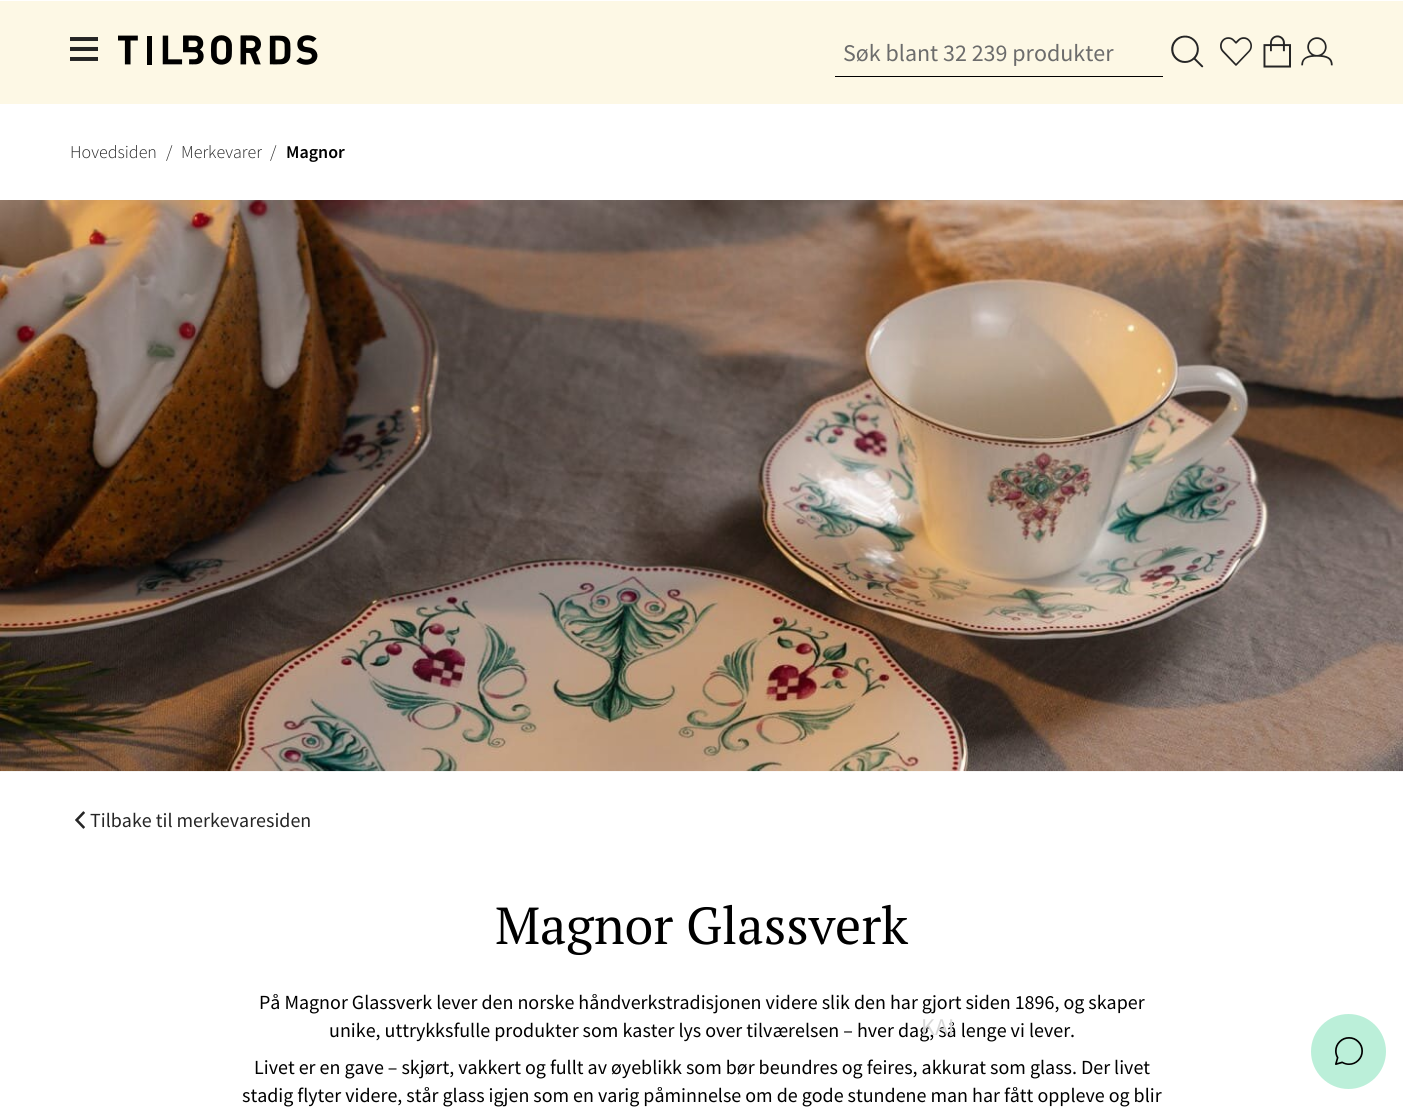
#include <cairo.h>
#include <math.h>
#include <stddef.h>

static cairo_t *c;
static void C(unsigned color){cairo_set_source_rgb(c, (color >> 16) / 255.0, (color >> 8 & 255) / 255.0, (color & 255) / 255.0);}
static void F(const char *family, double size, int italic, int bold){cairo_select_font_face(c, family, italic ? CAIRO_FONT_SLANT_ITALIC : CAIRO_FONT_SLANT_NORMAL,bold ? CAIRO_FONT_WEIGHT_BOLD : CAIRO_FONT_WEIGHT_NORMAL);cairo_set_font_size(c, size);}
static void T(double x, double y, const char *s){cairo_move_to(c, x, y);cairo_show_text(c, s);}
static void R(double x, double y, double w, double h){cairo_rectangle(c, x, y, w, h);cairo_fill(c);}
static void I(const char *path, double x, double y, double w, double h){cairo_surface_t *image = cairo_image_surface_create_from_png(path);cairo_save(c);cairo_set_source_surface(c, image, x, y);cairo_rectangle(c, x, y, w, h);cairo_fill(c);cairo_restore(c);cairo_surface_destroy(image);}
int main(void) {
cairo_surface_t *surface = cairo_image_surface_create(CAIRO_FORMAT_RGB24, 1403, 1108);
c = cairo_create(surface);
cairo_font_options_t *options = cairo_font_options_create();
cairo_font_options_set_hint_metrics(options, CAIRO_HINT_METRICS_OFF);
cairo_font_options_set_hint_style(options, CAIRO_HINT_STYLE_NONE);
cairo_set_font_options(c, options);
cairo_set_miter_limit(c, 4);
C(0xffffff);
cairo_paint(c);
C(0xfdf8e5);
R(0,1,1403,103);
F("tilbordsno",28,0,0);
C(0x252525);
T(70,63,"1");
I("1.png",118,35,200,30);
C(0x000000);
R(835,76,328,1);
F("Source Sans Pro",24,0,0);
C(0x6c6c6c);
T(843,61,"Søk blant 32 239 produkter");
I("2.png",1171,35,33,33);
I("3.png",1220,37,32,29);
I("4.png",1263,35,28,33);
I("5.png",1301,37,32,29);
F("Source Sans Pro Light",18,0,0);
C(0x252525);
T(70,158,"Hovedsiden");
T(166,158,"/");
T(181,158,"Merkevarer");
T(270,158,"/");
F("Source Sans Pro SemiBold",18,0,0);
C(0x000000);
T(286,158,"Magnor");
I("6.png",0,200,1403,572);
I("7.png",75,811,10,18);
F("Source Sans Pro",20,0,0);
C(0x252525);
T(90,827,"Tilbake til merkevaresiden");
F("PT Serif",52,0,0);
C(0x000000);
T(495,944,"Magnor Glassverk");
F("Source Sans Pro",20,0,0);
T(259,1009,"På Magnor Glassverk lever den norske håndverkstradisjonen videre slik den har gjort siden 1896, og skaper");
T(329,1037,"unike, uttrykksfulle produkter som kaster lys over tilværelsen – hver dag, så lenge vi lever.");
T(254,1074,"Livet er en gave – skjørt, vakkert og fullt av øyeblikk som bør beundres og feires, akkurat som glass. Der livet");
T(242,1102,"stadig flyter videre, står glass igjen som en varig påminnelse om de gode stundene man har fått oppleve og blir");
C(0xbbefd9);
cairo_new_path(c);
cairo_arc(c,1348.5,1051.5,37.5,0,2 * M_PI);
cairo_fill(c);
I("8.png",1335,1037,28,28);
F("Source Sans Pro",24,0,0);
C(0xd8d8d8);
T(921,1035,"KAI");
cairo_surface_write_to_png(surface, "o.png");
cairo_font_options_destroy(options);
cairo_destroy(c);
cairo_surface_destroy(surface);
return 0;
}
